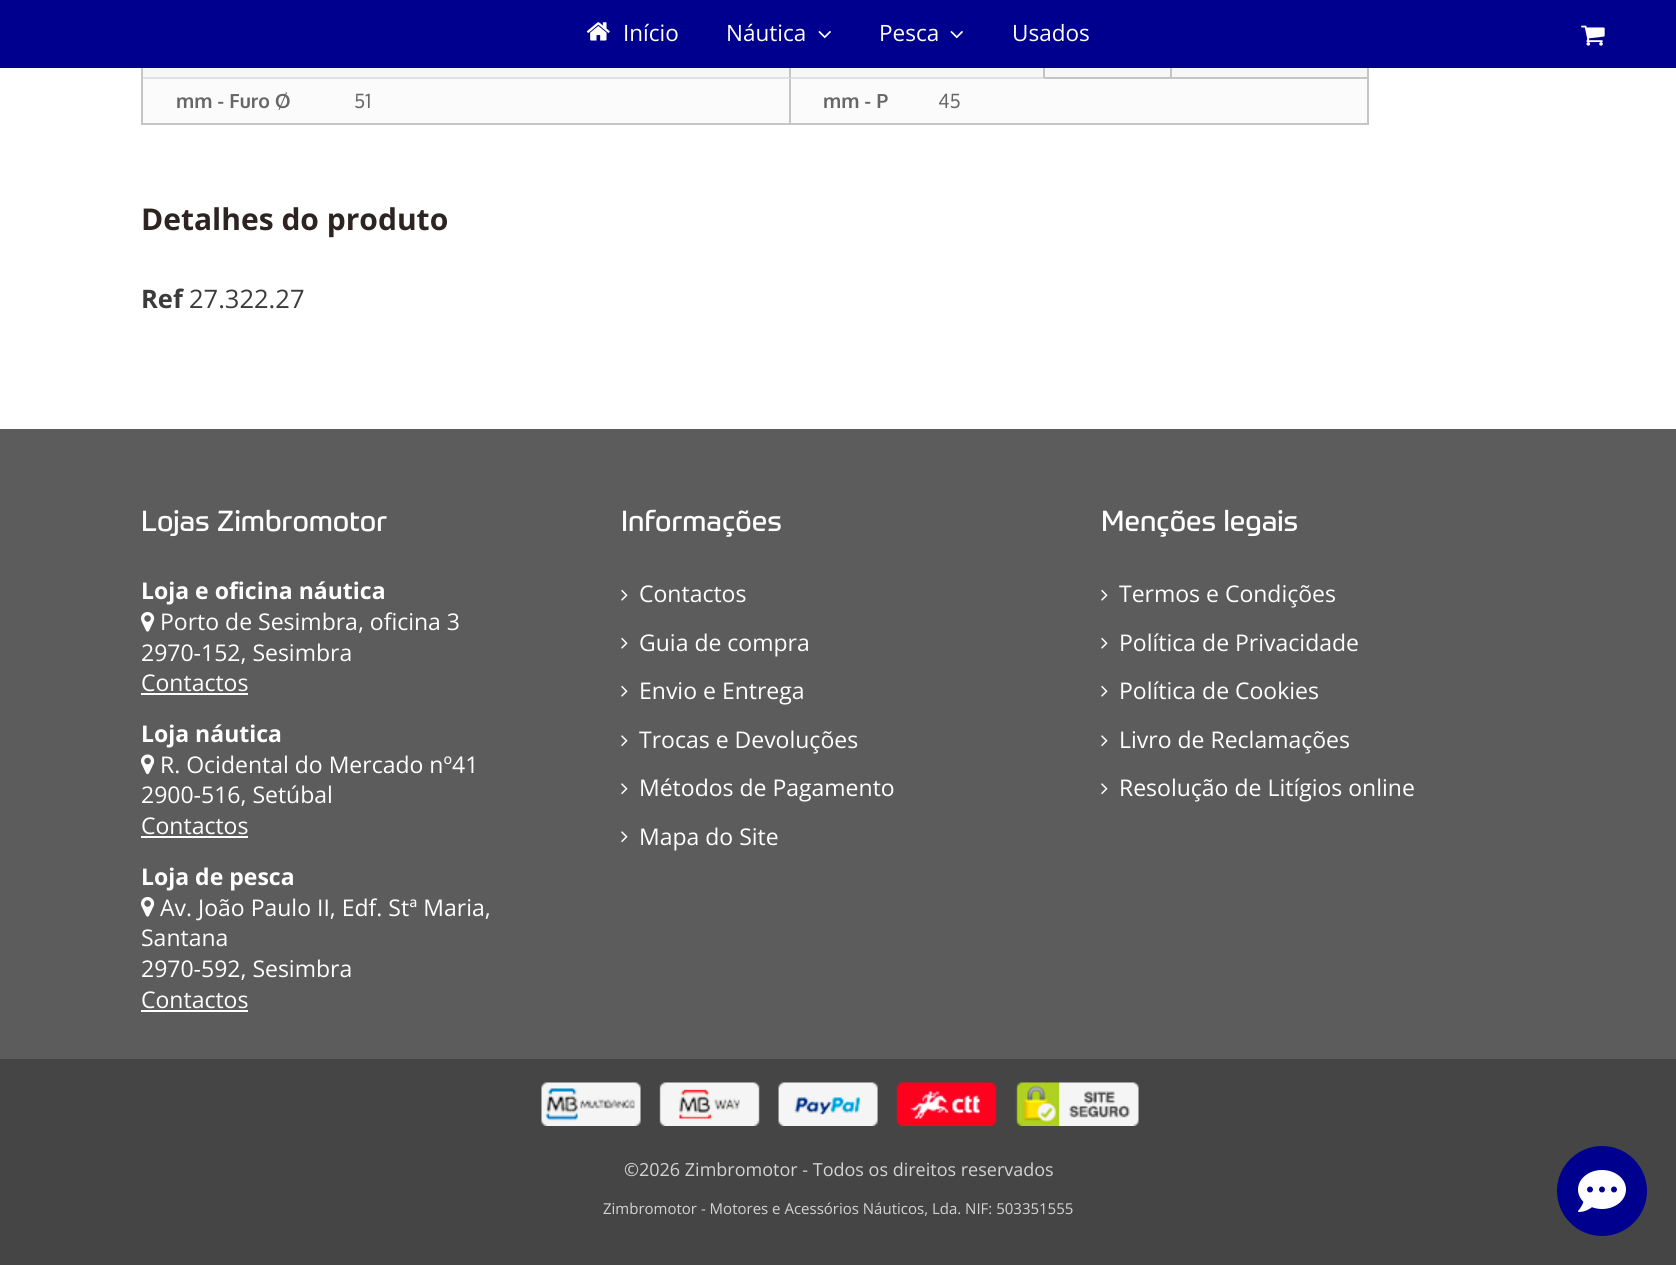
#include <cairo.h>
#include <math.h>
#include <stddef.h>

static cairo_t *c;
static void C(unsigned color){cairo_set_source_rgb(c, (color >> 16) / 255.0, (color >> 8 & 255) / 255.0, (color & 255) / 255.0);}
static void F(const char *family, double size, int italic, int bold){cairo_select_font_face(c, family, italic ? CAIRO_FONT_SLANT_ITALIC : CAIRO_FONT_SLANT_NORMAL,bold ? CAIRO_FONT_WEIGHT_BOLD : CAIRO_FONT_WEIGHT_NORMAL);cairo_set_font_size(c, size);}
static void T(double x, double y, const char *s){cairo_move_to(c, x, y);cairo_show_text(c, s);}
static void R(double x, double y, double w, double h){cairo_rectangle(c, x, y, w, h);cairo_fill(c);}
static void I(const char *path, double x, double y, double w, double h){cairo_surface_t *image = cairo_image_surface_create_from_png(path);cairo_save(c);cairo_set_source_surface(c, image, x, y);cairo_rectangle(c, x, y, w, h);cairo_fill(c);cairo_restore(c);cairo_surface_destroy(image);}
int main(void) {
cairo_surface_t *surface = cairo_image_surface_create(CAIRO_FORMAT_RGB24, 1676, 1265);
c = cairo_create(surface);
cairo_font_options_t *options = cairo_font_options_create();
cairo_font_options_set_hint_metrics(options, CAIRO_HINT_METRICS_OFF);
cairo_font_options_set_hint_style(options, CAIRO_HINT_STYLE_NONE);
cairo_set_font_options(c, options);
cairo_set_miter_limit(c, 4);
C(0xffffff);
cairo_paint(c);
C(0x00008e);
R(0,0,1676,68);
I("1.png",586,22,24,19);
F("Open Sans",22.5,0,0);
C(0xffffff);
T(623,41,"Início");
T(726,41,"Náutica");
I("2.png",818,31,13,8);
T(879,41,"Pesca");
I("2.png",950,31,13,8);
T(1012,41,"Usados");
I("3.png",1581,25,24,21);
C(0xf7f7f7);
R(143,68,1224,9);
C(0xfbfbfb);
R(143,79,1224,44);
C(0xc5c5c5);
R(1044,77,324,2);
R(1367,68,2,57);
R(141,123,1227,2);
C(0xdee2e6);
R(789,77,255,2);
C(0xc5c5c5);
R(789,77,2,48);
C(0xdee2e6);
R(141,77,650,2);
C(0xc5c5c5);
R(789,68,2,10);
R(1043,68,2,10);
R(1170,68,2,10);
R(141,68,2,57);
F("Oxygen",19.5,0,1);
C(0x676767);
T(176,108,"mm - Furo Ø");
F("Oxygen",19.5,0,0);
T(354,108,"51");
F("Oxygen",19.5,0,1);
T(823,108,"mm - P");
F("Oxygen",19.5,0,0);
T(938,108,"45");
F("Open Sans",30,0,1);
C(0x2e2323);
T(141,230,"Detalhes do produto");
F("Open Sans",25.5,0,1);
C(0x3b3b3b);
T(141,308,"Ref");
F("Open Sans",25.5,0,0);
T(189,308,"27.322.27");
C(0x5c5c5c);
R(0,429,1676,630);
F("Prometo",28.5,0,0);
C(0xffffff);
T(141,531,"Lojas Zimbromotor");
F("Open Sans",23,0,1);
T(141,599,"Loja e oficina náutica");
I("4.png",141,612,14,20);
F("Open Sans",23,0,0);
T(160,630,"Porto de Sesimbra, oficina 3");
T(141,661,"2970-152, Sesimbra");
T(141,691,"Contactos");
R(141,693,107,2);
F("Open Sans",23,0,1);
T(141,742,"Loja náutica");
I("5.png",141,754,14,21);
F("Open Sans",23,0,0);
T(160,773,"R. Ocidental do Mercado nº41");
T(141,803,"2900-516, Setúbal");
T(141,834,"Contactos");
R(141,836,107,2);
F("Open Sans",23,0,1);
T(141,885,"Loja de pesca");
I("4.png",141,897,14,20);
F("Open Sans",23,0,0);
T(160,916,"Av. João Paulo II, Edf. Stª Maria,");
T(141,946,"Santana");
T(141,977,"2970-592, Sesimbra");
T(141,1008,"Contactos");
R(141,1010,107,2);
F("Prometo",28.5,0,0);
T(621,531,"Informações");
I("6.png",621,589,7,12);
F("Open Sans",23,0,0);
T(639,602,"Contactos");
I("6.png",621,637,7,12);
T(639,651,"Guia de compra");
I("6.png",621,685,7,12);
T(639,699,"Envio e Entrega");
I("7.png",621,735,7,12);
T(639,748,"Trocas e Devoluções");
I("7.png",621,783,7,12);
T(639,796,"Métodos de Pagamento");
I("7.png",621,831,7,12);
T(639,845,"Mapa do Site");
F("Prometo",28.5,0,0);
T(1101,531,"Menções legais");
I("6.png",1101,589,7,12);
F("Open Sans",23,0,0);
T(1119,602,"Termos e Condições");
I("6.png",1101,637,7,12);
T(1119,651,"Política de Privacidade");
I("6.png",1101,685,7,12);
T(1119,699,"Política de Cookies");
I("7.png",1101,735,7,12);
T(1119,748,"Livro de Reclamações");
I("7.png",1101,783,7,12);
T(1119,796,"Resolução de Litígios online");
C(0x454545);
R(0,1059,1676,206);
I("8.png",541,1082,598,44);
F("Open Sans",18,0,0);
C(0xd4d4d4);
T(624,1176,"©2026 Zimbromotor - Todos os direitos reservados");
F("Open Sans",15,0,0);
T(603,1214,"Zimbromotor - Motores e Acessórios Náuticos, Lda. NIF: 503351555");
C(0x00008e);
cairo_new_path(c);
cairo_arc(c,1602,1191,45,0,2 * M_PI);
cairo_fill(c);
I("9.png",1578,1170,48,42);
cairo_surface_write_to_png(surface, "o.png");
cairo_font_options_destroy(options);
cairo_destroy(c);
cairo_surface_destroy(surface);
return 0;
}
